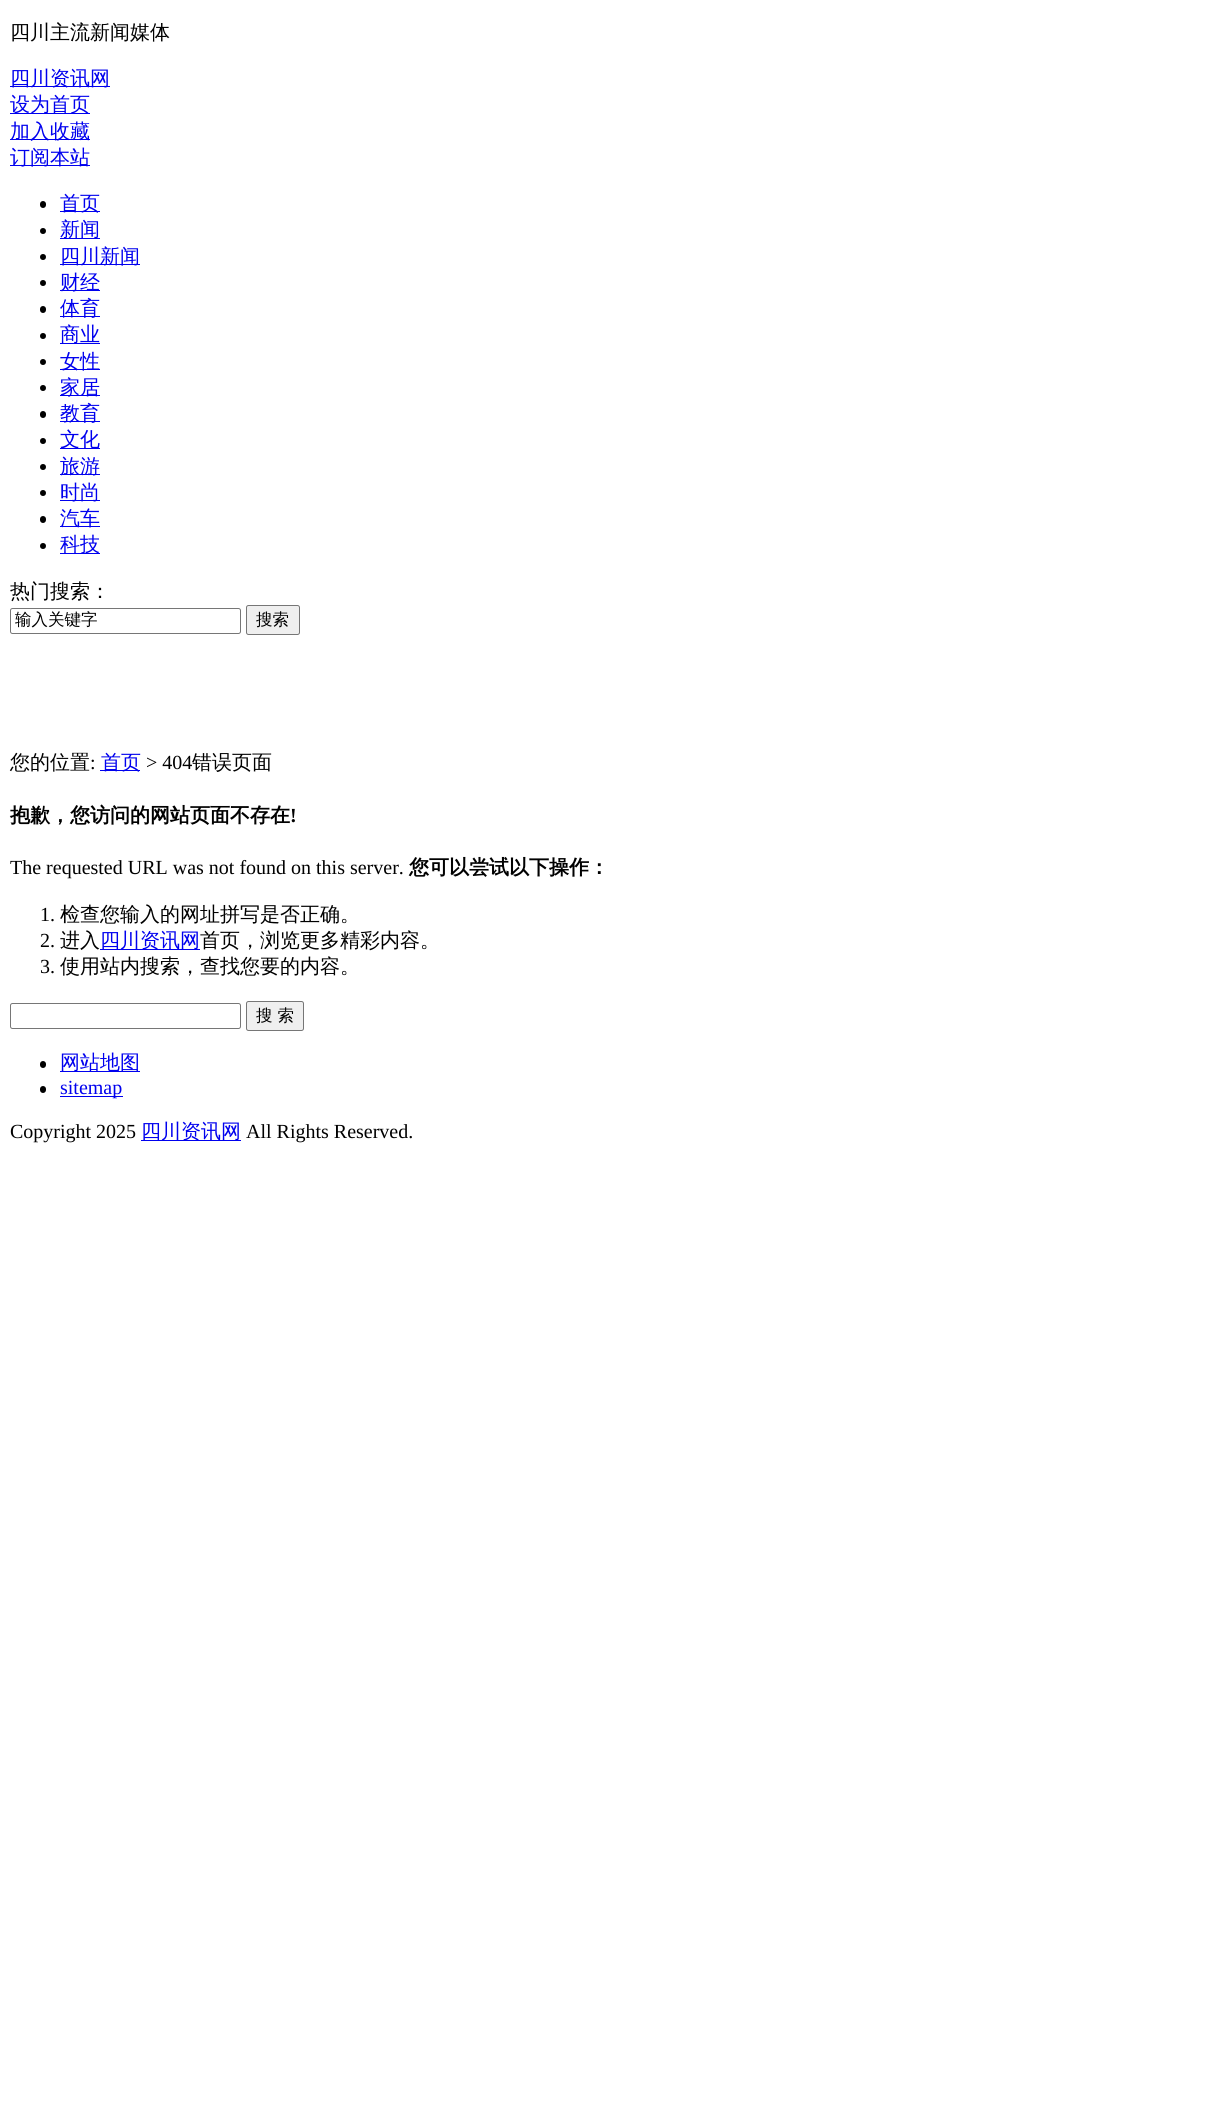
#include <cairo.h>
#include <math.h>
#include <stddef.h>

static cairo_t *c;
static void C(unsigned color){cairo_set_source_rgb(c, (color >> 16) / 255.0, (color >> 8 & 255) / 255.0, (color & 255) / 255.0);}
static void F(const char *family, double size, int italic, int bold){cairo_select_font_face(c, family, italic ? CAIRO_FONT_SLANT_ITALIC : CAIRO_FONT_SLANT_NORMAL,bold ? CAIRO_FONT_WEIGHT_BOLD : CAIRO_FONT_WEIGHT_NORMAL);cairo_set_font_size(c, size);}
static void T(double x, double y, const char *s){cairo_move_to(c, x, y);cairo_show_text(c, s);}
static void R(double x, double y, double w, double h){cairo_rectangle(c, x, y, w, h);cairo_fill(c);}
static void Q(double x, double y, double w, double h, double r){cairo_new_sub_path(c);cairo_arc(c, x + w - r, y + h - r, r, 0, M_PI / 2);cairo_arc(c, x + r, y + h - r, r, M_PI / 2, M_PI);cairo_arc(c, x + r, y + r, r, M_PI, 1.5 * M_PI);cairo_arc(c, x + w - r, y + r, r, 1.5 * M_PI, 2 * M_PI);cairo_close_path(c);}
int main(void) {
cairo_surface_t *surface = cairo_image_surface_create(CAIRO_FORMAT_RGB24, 1215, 2122);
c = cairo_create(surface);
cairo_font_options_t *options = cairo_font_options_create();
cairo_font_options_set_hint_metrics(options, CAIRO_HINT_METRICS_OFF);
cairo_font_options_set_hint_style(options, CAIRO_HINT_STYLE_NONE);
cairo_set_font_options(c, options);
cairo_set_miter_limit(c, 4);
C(0xffffff);
cairo_paint(c);
F("WenQuanYi Zen Hei Medium",20,0,0);
C(0x000000);
T(10,39,"四川主流新闻媒体");
C(0x0000ee);
R(10,86,100,1);
T(10,85,"四川资讯网");
R(10,113,80,1);
T(10,111,"设为首页");
R(10,139,80,1);
T(10,138,"加入收藏");
R(10,165,80,1);
T(10,164,"订阅本站");
C(0x000000);
Q(40,201,6,7,3);
cairo_fill(c);
C(0x0000ee);
R(60,211,40,1);
T(60,210,"首页");
C(0x000000);
cairo_new_path(c);
cairo_arc(c,43,231,3,0,2 * M_PI);
cairo_fill(c);
C(0x0000ee);
R(60,238,40,1);
T(60,236,"新闻");
C(0x000000);
cairo_new_path(c);
cairo_arc(c,43,257,3,0,2 * M_PI);
cairo_fill(c);
C(0x0000ee);
R(60,264,80,1);
T(60,263,"四川新闻");
C(0x000000);
cairo_new_path(c);
cairo_arc(c,43,283,3,0,2 * M_PI);
cairo_fill(c);
C(0x0000ee);
R(60,290,40,1);
T(60,289,"财经");
C(0x000000);
Q(40,306,6,7,3);
cairo_fill(c);
C(0x0000ee);
R(60,316,40,1);
T(60,315,"体育");
C(0x000000);
cairo_new_path(c);
cairo_arc(c,43,336,3,0,2 * M_PI);
cairo_fill(c);
C(0x0000ee);
R(60,343,40,1);
T(60,341,"商业");
C(0x000000);
cairo_new_path(c);
cairo_arc(c,43,362,3,0,2 * M_PI);
cairo_fill(c);
C(0x0000ee);
R(60,369,40,1);
T(60,368,"女性");
C(0x000000);
cairo_new_path(c);
cairo_arc(c,43,388,3,0,2 * M_PI);
cairo_fill(c);
C(0x0000ee);
R(60,395,40,1);
T(60,394,"家居");
C(0x000000);
Q(40,411,6,7,3);
cairo_fill(c);
C(0x0000ee);
R(60,421,40,1);
T(60,420,"教育");
C(0x000000);
cairo_new_path(c);
cairo_arc(c,43,441,3,0,2 * M_PI);
cairo_fill(c);
C(0x0000ee);
R(60,448,40,1);
T(60,446,"文化");
C(0x000000);
cairo_new_path(c);
cairo_arc(c,43,467,3,0,2 * M_PI);
cairo_fill(c);
C(0x0000ee);
R(60,474,40,1);
T(60,473,"旅游");
C(0x000000);
cairo_new_path(c);
cairo_arc(c,43,493,3,0,2 * M_PI);
cairo_fill(c);
C(0x0000ee);
R(60,500,40,1);
T(60,499,"时尚");
C(0x000000);
Q(40,516,6,7,3);
cairo_fill(c);
C(0x0000ee);
R(60,526,40,1);
T(60,525,"汽车");
C(0x000000);
cairo_new_path(c);
cairo_arc(c,43,546,3,0,2 * M_PI);
cairo_fill(c);
C(0x0000ee);
R(60,553,40,1);
T(60,551,"科技");
C(0x000000);
T(10,598,"热门搜索：");
Q(10.5,608.5,230,25,2);
C(0x767676);
cairo_set_line_width(c,1);
cairo_stroke(c);
F("WenQuanYi Zen Hei Medium",16.5,0,0);
C(0x000000);
T(15,625,"输入关键字");
C(0xefefef);
Q(246.5,605.5,53,29,2);
cairo_fill_preserve(c);
C(0x767676);
cairo_stroke(c);
C(0x000000);
T(256,625,"搜索");
F("WenQuanYi Zen Hei Medium",20,0,0);
T(10,769,"您的位置");
F("Liberation Serif",20,0,0);
T(90,769,":");
C(0x0000ee);
R(100,770,40,1);
F("WenQuanYi Zen Hei Medium",20,0,0);
T(101,769,"首页");
F("Liberation Serif",20,0,0);
C(0x000000);
T(146,769,"> 404");
F("WenQuanYi Zen Hei Medium",20,0,0);
T(192,769,"错误页面");
F("WenQuanYi Zen Hei",20,0,1);
T(10,822,"抱歉，您访问的网站页面不存在");
F("Liberation Serif",20,0,1);
T(290,822,"!");
F("Liberation Serif",20,0,0);
T(10,874,"The requested URL was not found on this server.");
F("WenQuanYi Zen Hei",20,0,1);
T(409,874,"您可以尝试以下操作：");
F("Liberation Serif",20,0,0);
T(40,921,"1.");
F("WenQuanYi Zen Hei Medium",20,0,0);
T(60,921,"检查您输入的网址拼写是否正确。");
F("Liberation Serif",20,0,0);
T(40,947,"2.");
F("WenQuanYi Zen Hei Medium",20,0,0);
T(60,947,"进入");
C(0x0000ee);
R(100,949,100,1);
T(100,947,"四川资讯网");
C(0x000000);
T(200,947,"首页，浏览更多精彩内容。");
F("Liberation Serif",20,0,0);
T(40,973,"3.");
F("WenQuanYi Zen Hei Medium",20,0,0);
T(60,973,"使用站内搜索，查找您要的内容。");
Q(10.5,1003.5,230,25,2);
C(0x767676);
cairo_stroke(c);
C(0xefefef);
Q(246.5,1001.5,57,29,2);
cairo_fill_preserve(c);
C(0x767676);
cairo_stroke(c);
F("WenQuanYi Zen Hei Medium",16.5,0,0);
C(0x000000);
T(256,1021,"搜 索");
Q(40,1061,6,7,3);
cairo_fill(c);
C(0x0000ee);
R(60,1071,80,1);
F("WenQuanYi Zen Hei Medium",20,0,0);
T(60,1069,"网站地图");
C(0x000000);
Q(40,1086,6,7,3);
cairo_fill(c);
C(0x0000ee);
R(60,1096,63,1);
F("Liberation Serif",20,0,0);
T(60,1094,"sitemap");
C(0x000000);
T(10,1138,"Copyright 2025");
C(0x0000ee);
R(141,1140,100,1);
F("WenQuanYi Zen Hei Medium",20,0,0);
T(141,1138,"四川资讯网");
F("Liberation Serif",20,0,0);
C(0x000000);
T(246,1138,"All Rights Reserved.");
cairo_surface_write_to_png(surface, "o.png");
cairo_font_options_destroy(options);
cairo_destroy(c);
cairo_surface_destroy(surface);
return 0;
}
